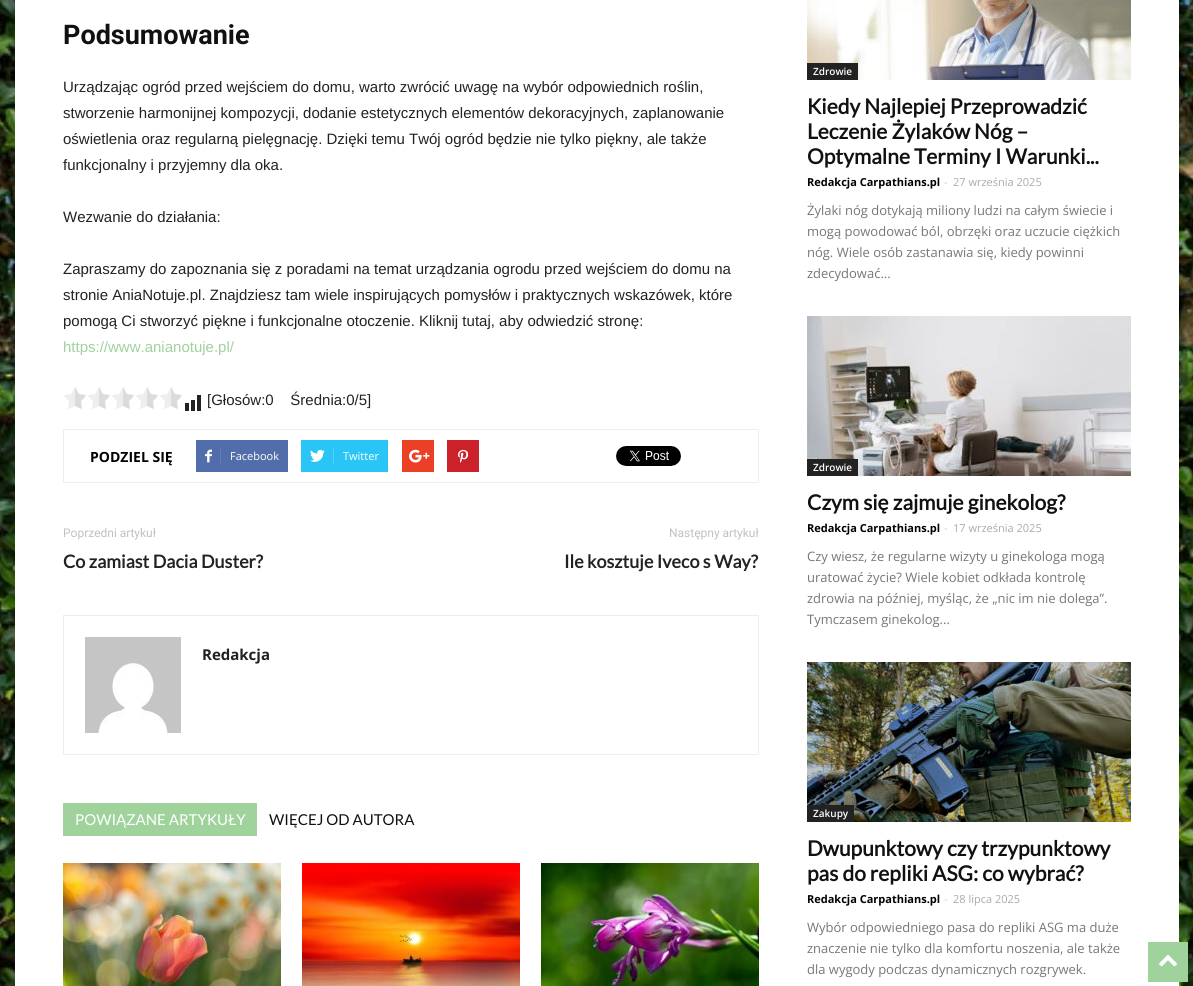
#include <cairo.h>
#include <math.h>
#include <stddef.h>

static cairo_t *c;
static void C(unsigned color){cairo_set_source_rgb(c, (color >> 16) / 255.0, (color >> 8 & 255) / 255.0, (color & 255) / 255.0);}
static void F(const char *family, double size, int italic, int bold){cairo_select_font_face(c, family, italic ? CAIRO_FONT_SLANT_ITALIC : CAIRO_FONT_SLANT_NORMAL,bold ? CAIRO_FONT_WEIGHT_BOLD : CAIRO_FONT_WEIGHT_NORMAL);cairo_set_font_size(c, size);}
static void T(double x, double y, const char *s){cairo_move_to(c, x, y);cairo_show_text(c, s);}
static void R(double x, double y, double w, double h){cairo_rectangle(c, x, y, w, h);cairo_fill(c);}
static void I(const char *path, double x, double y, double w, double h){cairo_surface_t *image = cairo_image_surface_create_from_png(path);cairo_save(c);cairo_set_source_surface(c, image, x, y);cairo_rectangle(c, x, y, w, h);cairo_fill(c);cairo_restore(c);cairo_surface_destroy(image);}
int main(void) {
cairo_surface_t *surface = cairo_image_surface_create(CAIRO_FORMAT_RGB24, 1193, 986);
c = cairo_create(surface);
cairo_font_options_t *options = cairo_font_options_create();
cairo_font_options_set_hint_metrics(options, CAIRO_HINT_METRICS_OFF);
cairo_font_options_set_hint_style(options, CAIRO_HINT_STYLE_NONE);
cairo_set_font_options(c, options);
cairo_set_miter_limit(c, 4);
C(0xffffff);
cairo_paint(c);
I("1.png",0,0,1193,986);
C(0xffffff);
R(15,0,1164,986);
F("Roboto",27,0,1);
C(0x111111);
T(63,44,"Podsumowanie");
F("Liberation Sans",15,0,0);
C(0x222222);
T(63,92,"Urządzając ogród przed wejściem do domu, warto zwrócić uwagę na wybór odpowiednich roślin,");
T(63,118,"stworzenie harmonijnej kompozycji, dodanie estetycznych elementów dekoracyjnych, zaplanowanie");
T(63,144,"oświetlenia oraz regularną pielęgnację. Dzięki temu Twój ogród będzie nie tylko piękny, ale także");
T(63,170,"funkcjonalny i przyjemny dla oka.");
T(63,222,"Wezwanie do działania:");
T(63,274,"Zapraszamy do zapoznania się z poradami na temat urządzania ogrodu przed wejściem do domu na");
T(63,300,"stronie AniaNotuje.pl. Znajdziesz tam wiele inspirujących pomysłów i praktycznych wskazówek, które");
T(63,326,"pomogą Ci stworzyć piękne i funkcjonalne otoczenie. Kliknij tutaj, aby odwiedzić stronę:");
C(0xa0d29c);
T(63,352,"https://www.anianotuje.pl/");
I("2.png",64,387,119,23);
I("3.png",185,395,16,16);
C(0x222222);
T(207,405,"[Głosów:0    Średnia:0/5]");
cairo_rectangle(c,63.5,429.5,695,53);
C(0xededed);
cairo_set_line_width(c,1);
cairo_stroke(c);
F("Open Sans",14,0,1);
C(0x000000);
T(90,462,"PODZIEL SIĘ");
C(0x516eab);
R(196,440,92,32);
I("4.png",205,449,7,14);
C(0x627db3);
R(220,448,1,16);
F("Open Sans",11,0,0);
C(0xffffff);
T(230,460,"Facebook");
C(0x29c5f6);
R(301,440,87,32);
I("5.png",310,449,15,13);
C(0x54d1f8);
R(333,448,1,16);
C(0xffffff);
T(343,460,"Twitter");
C(0xeb4026);
R(402,440,32,32);
I("6.png",409,449,21,14);
C(0xca212a);
R(447,440,32,32);
I("7.png",458,449,11,14);
I("8.png",616,446,65,20);
F("Roboto",12,0,0);
C(0xc1c1c1);
T(63,537,"Poprzedni artykuł");
F("Lato",18,0,1);
C(0x222222);
T(63,568,"Co zamiast Dacia Duster?");
F("Roboto",12,0,0);
C(0xc1c1c1);
T(669,537,"Następny artykuł");
F("Lato",18,0,1);
C(0x222222);
T(564,568,"Ile kosztuje Iveco s Way?");
cairo_rectangle(c,63.5,615.5,695,139);
C(0xededed);
cairo_stroke(c);
I("9.png",85,637,96,96);
F("Open Sans",15,0,1);
C(0x222222);
T(202,660,"Redakcja");
C(0xa0d29c);
R(63,803,194,33);
F("Lato",15,0,0);
C(0xffffff);
T(75,825,"POWIĄZANE ARTYKUŁY");
C(0x111111);
T(269,825,"WIĘCEJ OD AUTORA");
I("10.png",63,863,218,123);
I("11.png",302,863,218,123);
I("12.png",541,863,218,123);
I("13.png",807,0,324,80);
C(0x222222);
R(807,63,51,17);
F("Open Sans SemiBold",10,0,0);
C(0xffffff);
T(813,75,"Zdrowie");
F("Lato",21,0,1);
C(0x111111);
T(807,114,"Kiedy Najlepiej Przeprowadzić");
T(807,139,"Leczenie Żylaków Nóg –");
T(807,164,"Optymalne Terminy I Warunki...");
F("Open Sans",11,0,1);
C(0x000000);
T(807,186,"Redakcja Carpathians.pl");
F("Open Sans",11,0,0);
C(0xcccccc);
T(944,186,"-");
C(0xaaaaaa);
T(953,186,"27 września 2025");
F("Open Sans",13,0,0);
C(0x777777);
T(807,215,"Żylaki nóg dotykają miliony ludzi na całym świecie i");
T(807,236,"mogą powodować ból, obrzęki oraz uczucie ciężkich");
T(807,257,"nóg. Wiele osób zastanawia się, kiedy powinni");
T(807,278,"zdecydować...");
I("14.png",807,316,324,160);
C(0x222222);
R(807,459,51,17);
F("Open Sans SemiBold",10,0,0);
C(0xffffff);
T(813,471,"Zdrowie");
F("Lato",21,0,1);
C(0x111111);
T(807,510,"Czym się zajmuje ginekolog?");
F("Open Sans",11,0,1);
C(0x000000);
T(807,532,"Redakcja Carpathians.pl");
F("Open Sans",11,0,0);
C(0xcccccc);
T(944,532,"-");
C(0xaaaaaa);
T(953,532,"17 września 2025");
F("Open Sans",13,0,0);
C(0x777777);
T(807,561,"Czy wiesz, że regularne wizyty u ginekologa mogą");
T(807,582,"uratować życie? Wiele kobiet odkłada kontrolę");
T(807,603,"zdrowia na później, myśląc, że „nic im nie dolega”.");
T(807,624,"Tymczasem ginekolog...");
I("15.png",807,662,324,160);
C(0x222222);
R(807,805,47,17);
F("Open Sans SemiBold",10,0,0);
C(0xffffff);
T(813,817,"Zakupy");
F("Lato",21,0,1);
C(0x111111);
T(807,856,"Dwupunktowy czy trzypunktowy");
T(807,881,"pas do repliki ASG: co wybrać?");
F("Open Sans",11,0,1);
C(0x000000);
T(807,903,"Redakcja Carpathians.pl");
F("Open Sans",11,0,0);
C(0xcccccc);
T(944,903,"-");
C(0xaaaaaa);
T(953,903,"28 lipca 2025");
F("Open Sans",13,0,0);
C(0x777777);
T(807,932,"Wybór odpowiedniego pasa do repliki ASG ma duże");
T(807,953,"znaczenie nie tylko dla komfortu noszenia, ale także");
T(807,974,"dla wygody podczas dynamicznych rozgrywek.");
C(0xa0d29c);
R(1148,942,40,40);
I("16.png",1159,954,18,13);
cairo_surface_write_to_png(surface, "o.png");
cairo_font_options_destroy(options);
cairo_destroy(c);
cairo_surface_destroy(surface);
return 0;
}
